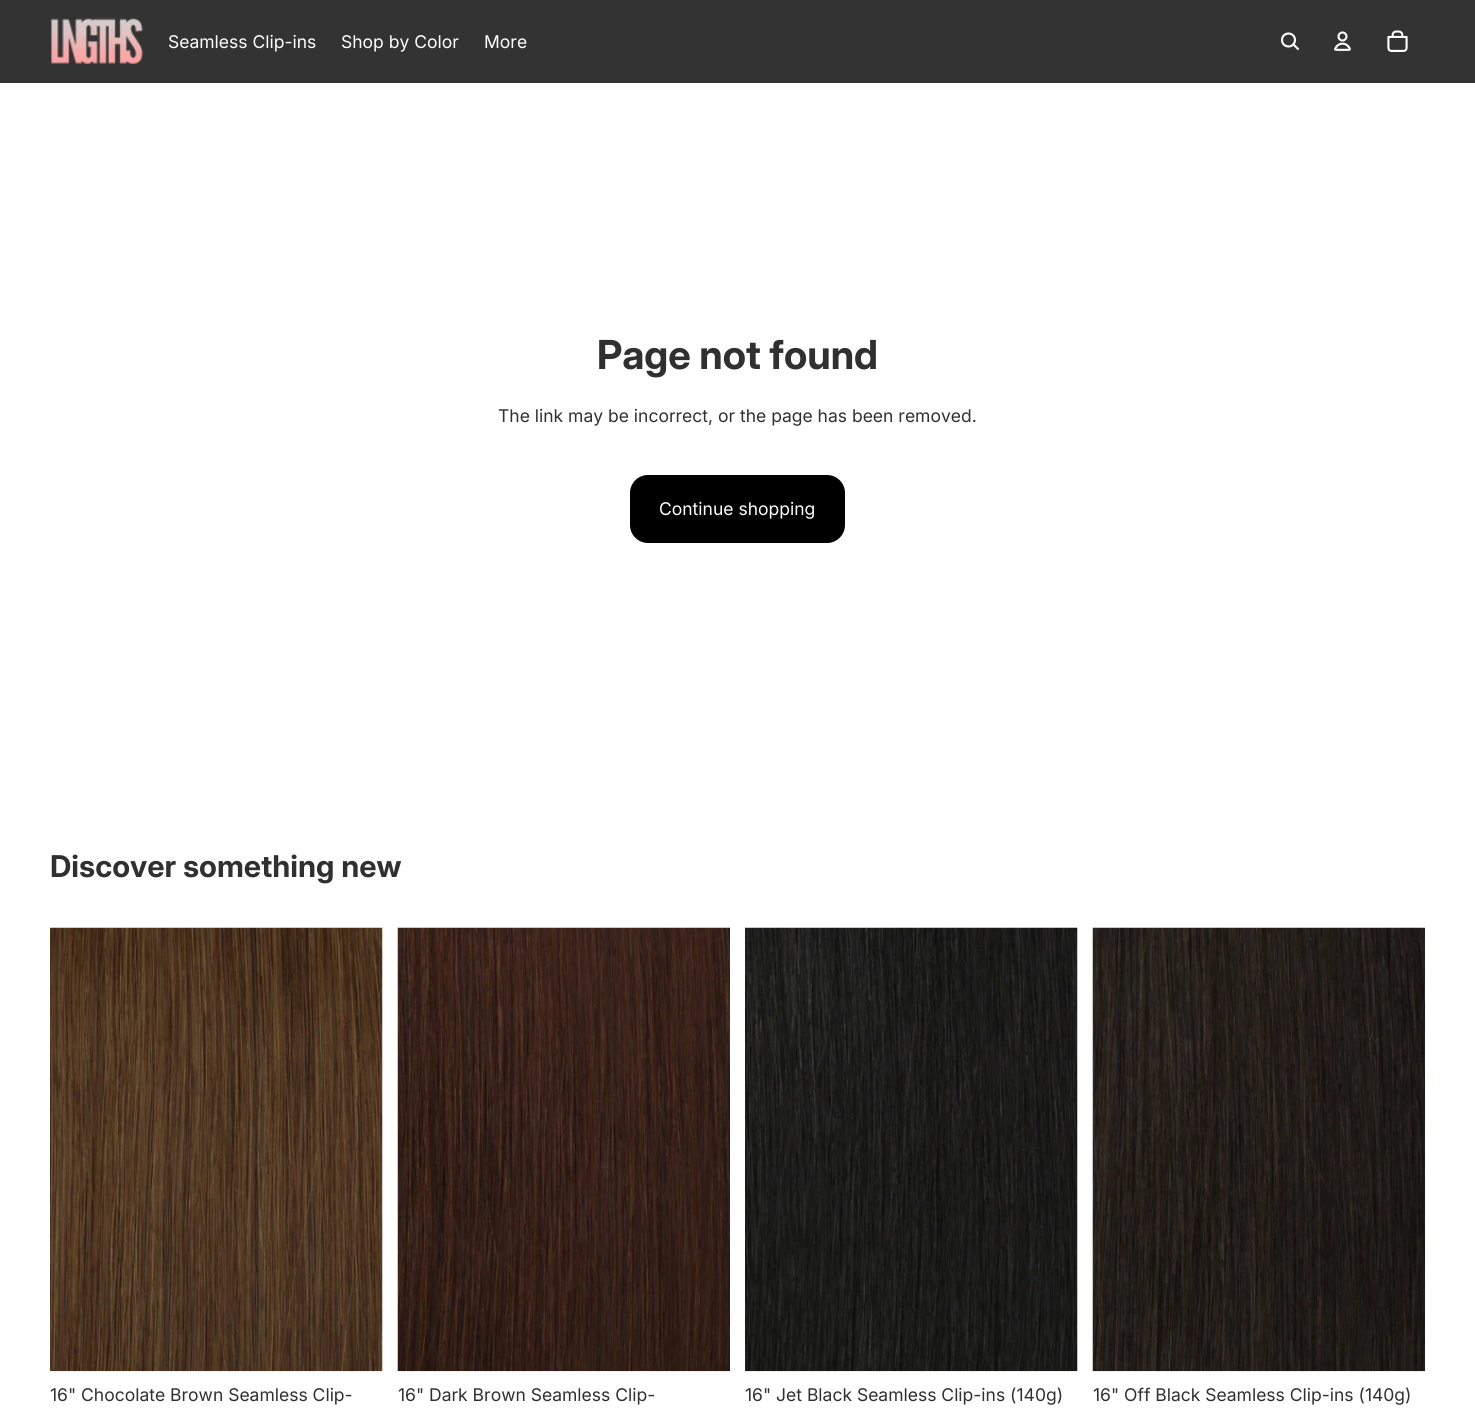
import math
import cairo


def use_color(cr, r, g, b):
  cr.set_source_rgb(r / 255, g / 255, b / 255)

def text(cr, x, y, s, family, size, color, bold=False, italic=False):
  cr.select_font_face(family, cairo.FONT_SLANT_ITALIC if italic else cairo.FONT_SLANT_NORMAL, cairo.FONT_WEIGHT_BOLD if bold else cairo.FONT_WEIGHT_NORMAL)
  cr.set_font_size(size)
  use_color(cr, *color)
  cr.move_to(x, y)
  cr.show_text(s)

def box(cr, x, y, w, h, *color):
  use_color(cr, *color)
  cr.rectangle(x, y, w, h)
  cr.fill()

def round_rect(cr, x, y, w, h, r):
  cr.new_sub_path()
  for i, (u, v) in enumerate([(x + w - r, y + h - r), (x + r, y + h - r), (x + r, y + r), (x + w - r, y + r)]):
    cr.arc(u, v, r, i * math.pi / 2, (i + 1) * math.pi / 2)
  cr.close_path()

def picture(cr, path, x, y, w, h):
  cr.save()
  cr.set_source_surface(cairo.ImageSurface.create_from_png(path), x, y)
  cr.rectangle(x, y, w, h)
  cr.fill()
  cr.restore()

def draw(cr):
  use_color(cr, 255, 255, 255)
  cr.paint()
  box(cr, 0, 0, 1475, 83, 51, 51, 51)
  picture(cr, "img_01.png", 51, 18, 92, 46)
  cr.arc(1288.5, 40, 6.5, 0, 2 * math.pi)
  use_color(cr, 255, 255, 255)
  cr.set_line_width(2.1)
  cr.stroke()
  cr.new_path()
  cr.move_to(1293.5, 44.5)
  cr.line_to(1298, 49)
  cr.set_line_cap(cairo.LINE_CAP_ROUND)
  cr.set_line_join(cairo.LINE_JOIN_ROUND)
  cr.stroke()
  picture(cr, "img_02.png", 1334, 31, 17, 20)
  picture(cr, "img_03.png", 1387, 30, 21, 22)
  use_color(cr, 0, 0, 0)
  round_rect(cr, 630, 475, 215, 68, 18)
  cr.fill()
  picture(cr, "img_04.png", 50, 927, 333, 445)
  picture(cr, "img_05.png", 397, 927, 333, 445)
  picture(cr, "img_06.png", 745, 927, 333, 445)
  picture(cr, "img_07.png", 1092, 927, 333, 445)
  text(cr, 168, 48, "Seamless Clip-ins", "Inter", 17.5, (255, 255, 255))
  text(cr, 341, 48, "Shop by Color", "Inter", 17.5, (255, 255, 255))
  text(cr, 484, 48, "More", "Inter", 17.5, (255, 255, 255))
  text(cr, 597, 369, "Page not found", "Inter", 40, (48, 48, 48), bold=True)
  text(cr, 498, 422, "The link may be incorrect, or the page has been removed.", "Inter", 17.5, (48, 48, 48))
  text(cr, 659, 515, "Continue shopping", "Inter", 17.5, (255, 255, 255))
  text(cr, 50, 877, "Discover something new", "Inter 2", 30, (48, 48, 48), bold=True)
  text(cr, 50, 1401, "16\" Chocolate Brown Seamless Clip-", "Inter", 17.5, (48, 48, 48))
  text(cr, 398, 1401, "16\" Dark Brown Seamless Clip-", "Inter", 17.5, (48, 48, 48))
  text(cr, 745, 1401, "16\" Jet Black Seamless Clip-ins (140g)", "Inter", 17.5, (48, 48, 48))
  text(cr, 1093, 1401, "16\" Off Black Seamless Clip-ins (140g)", "Inter", 17.5, (48, 48, 48))


surface = cairo.ImageSurface(cairo.FORMAT_RGB24, 1475, 1418)
cr = cairo.Context(surface)
options = cairo.FontOptions()
options.set_hint_metrics(cairo.HINT_METRICS_OFF)
options.set_hint_style(cairo.HINT_STYLE_NONE)
cr.set_font_options(options)
cr.set_miter_limit(4)
draw(cr)
surface.write_to_png("out.png")
